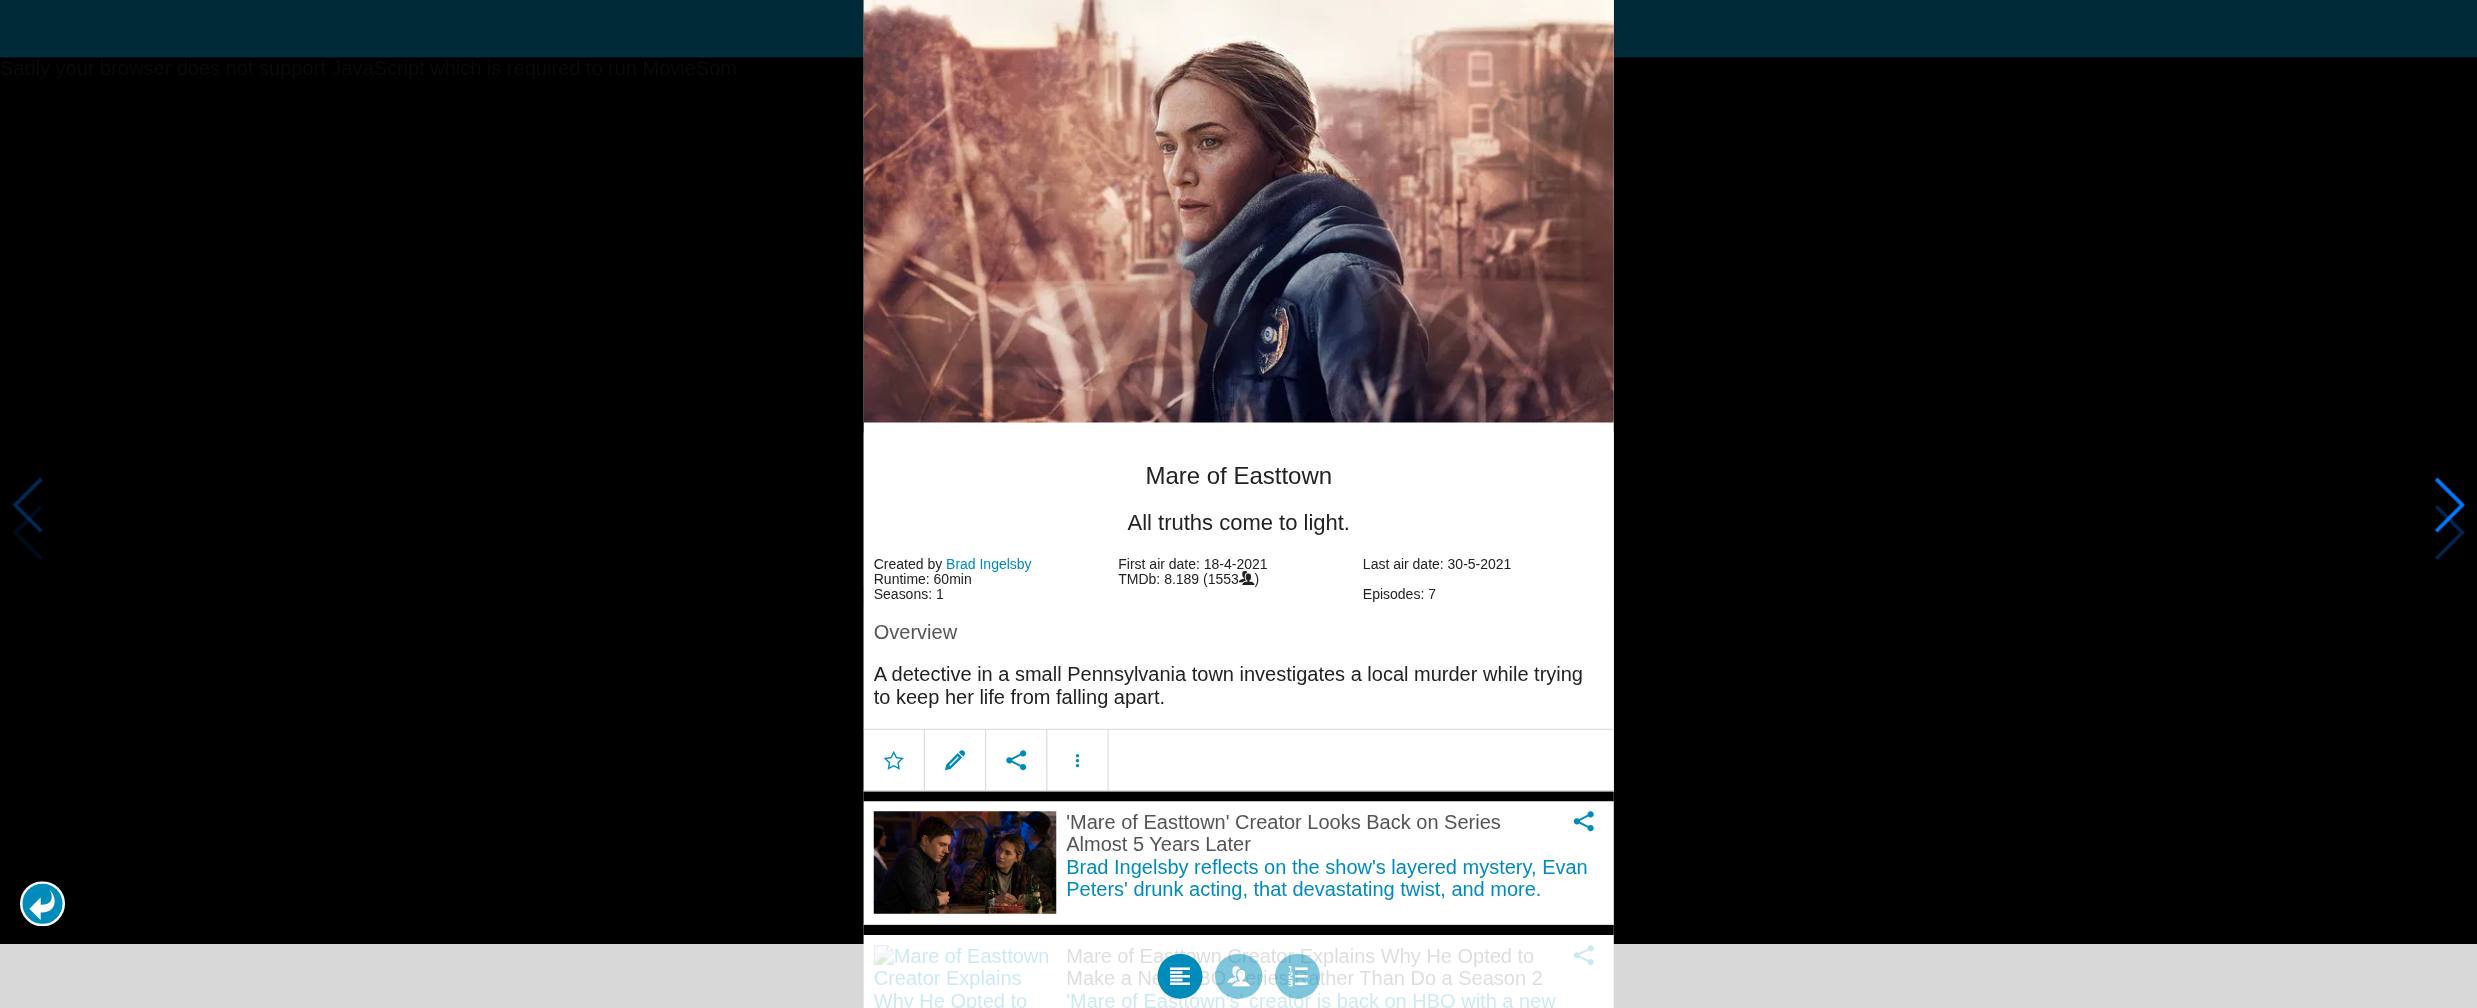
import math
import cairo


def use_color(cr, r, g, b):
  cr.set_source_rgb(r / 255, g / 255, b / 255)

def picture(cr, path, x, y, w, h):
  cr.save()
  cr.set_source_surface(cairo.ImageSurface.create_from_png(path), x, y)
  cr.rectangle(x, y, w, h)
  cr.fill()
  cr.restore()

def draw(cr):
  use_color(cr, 255, 255, 255)
  cr.paint()
  picture(cr, "img_01.png", 0, 0, 2477, 1008)


surface = cairo.ImageSurface(cairo.FORMAT_RGB24, 2477, 1008)
cr = cairo.Context(surface)
options = cairo.FontOptions()
options.set_hint_metrics(cairo.HINT_METRICS_OFF)
options.set_hint_style(cairo.HINT_STYLE_NONE)
cr.set_font_options(options)
cr.set_miter_limit(4)
draw(cr)
surface.write_to_png("out.png")
